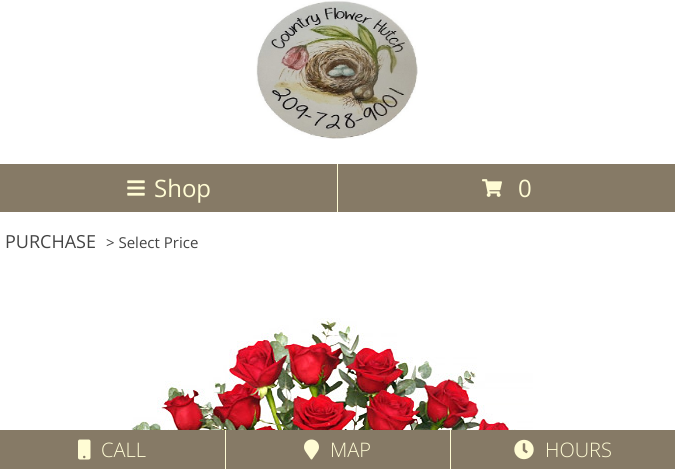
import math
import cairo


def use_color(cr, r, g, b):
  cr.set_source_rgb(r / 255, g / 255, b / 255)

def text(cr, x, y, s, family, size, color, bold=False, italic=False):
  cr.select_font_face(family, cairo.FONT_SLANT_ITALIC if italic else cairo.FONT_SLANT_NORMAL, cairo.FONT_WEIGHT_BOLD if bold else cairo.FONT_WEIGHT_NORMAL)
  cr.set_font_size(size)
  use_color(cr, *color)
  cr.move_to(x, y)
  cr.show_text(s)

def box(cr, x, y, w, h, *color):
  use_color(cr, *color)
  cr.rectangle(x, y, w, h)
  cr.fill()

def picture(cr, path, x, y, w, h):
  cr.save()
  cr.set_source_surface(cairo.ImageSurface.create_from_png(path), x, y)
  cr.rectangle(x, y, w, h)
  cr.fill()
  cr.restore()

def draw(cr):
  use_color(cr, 255, 255, 255)
  cr.paint()
  picture(cr, "img_01.png", 256, 0, 162, 139)
  box(cr, 337, 164, 1, 48, 255, 252, 212)
  box(cr, 0, 164, 337, 48, 134, 122, 102)
  picture(cr, "img_02.png", 127, 180, 18, 16)
  box(cr, 338, 164, 337, 48, 134, 122, 102)
  picture(cr, "img_03.png", 482, 179, 20, 18)
  picture(cr, "img_04.png", 130, 318, 403, 112)
  box(cr, 0, 430, 225, 39, 134, 122, 102)
  picture(cr, "img_05.png", 78, 439, 13, 21)
  box(cr, 226, 430, 224, 39, 134, 122, 102)
  box(cr, 225, 430, 1, 39, 255, 252, 212)
  picture(cr, "img_06.png", 304, 439, 15, 21)
  box(cr, 451, 430, 224, 39, 134, 122, 102)
  box(cr, 450, 430, 1, 39, 255, 252, 212)
  picture(cr, "img_07.png", 514, 439, 20, 21)
  text(cr, 154, 197, "Shop", "Open Sans", 24, (255, 252, 212))
  text(cr, 518, 197, "0", "Open Sans", 24, (255, 252, 212))
  text(cr, 5, 248, "PURCHASE", "Open Sans", 18, (68, 68, 68))
  text(cr, 106, 248, "> Select Price", "Open Sans", 15, (68, 68, 68))
  text(cr, 101, 457, "CALL", "Open Sans Light", 20, (255, 252, 212))
  text(cr, 330, 457, "MAP", "Open Sans Light", 20, (255, 252, 212))
  text(cr, 545, 457, "HOURS", "Open Sans Light", 20, (255, 252, 212))


surface = cairo.ImageSurface(cairo.FORMAT_RGB24, 675, 469)
cr = cairo.Context(surface)
options = cairo.FontOptions()
options.set_hint_metrics(cairo.HINT_METRICS_OFF)
options.set_hint_style(cairo.HINT_STYLE_NONE)
cr.set_font_options(options)
cr.set_miter_limit(4)
draw(cr)
surface.write_to_png("out.png")
